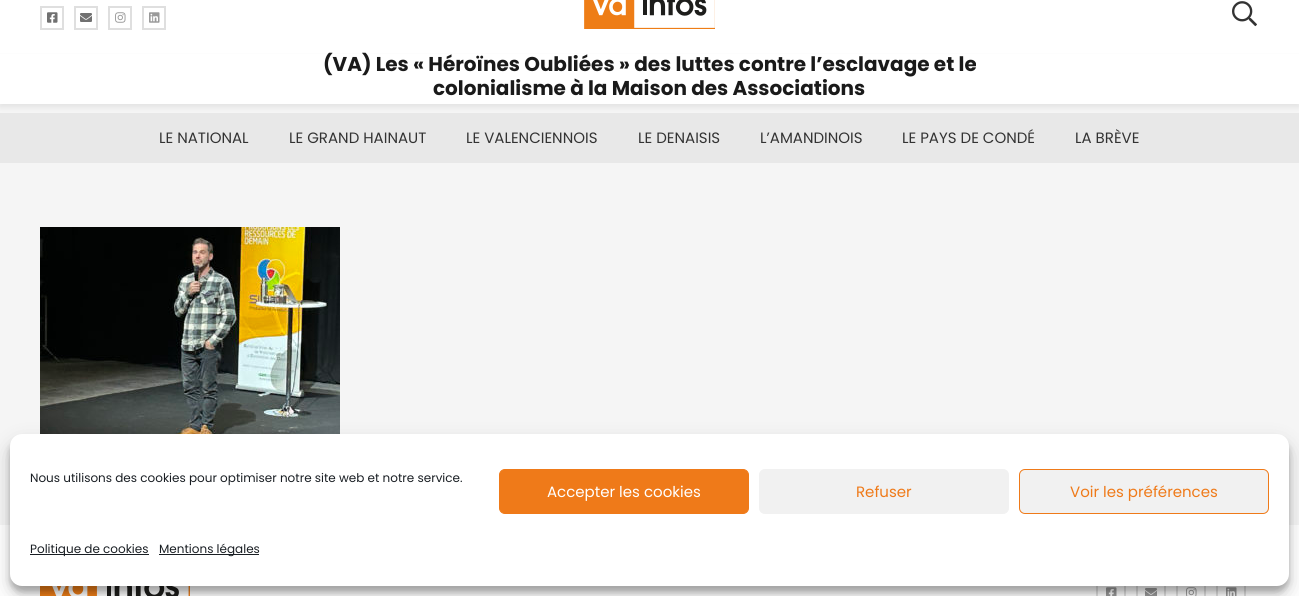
import math
import cairo


def use_color(cr, r, g, b):
  cr.set_source_rgb(r / 255, g / 255, b / 255)

def text(cr, x, y, s, family, size, color, bold=False, italic=False):
  cr.select_font_face(family, cairo.FONT_SLANT_ITALIC if italic else cairo.FONT_SLANT_NORMAL, cairo.FONT_WEIGHT_BOLD if bold else cairo.FONT_WEIGHT_NORMAL)
  cr.set_font_size(size)
  use_color(cr, *color)
  cr.move_to(x, y)
  cr.show_text(s)

def box(cr, x, y, w, h, *color):
  use_color(cr, *color)
  cr.rectangle(x, y, w, h)
  cr.fill()

def round_rect(cr, x, y, w, h, r):
  cr.new_sub_path()
  for i, (u, v) in enumerate([(x + w - r, y + h - r), (x + r, y + h - r), (x + r, y + r), (x + w - r, y + r)]):
    cr.arc(u, v, r, i * math.pi / 2, (i + 1) * math.pi / 2)
  cr.close_path()

def shadow(cr, x, y, w, h, r, blur, alpha):
  cr.push_group_with_content(cairo.CONTENT_ALPHA)
  cr.set_operator(cairo.OPERATOR_SOURCE)
  for i in range(15, -16, -2):
    e = blur * i / 6
    if min(w, h) + 2 * e > 0:
      cr.set_source_rgba(0, 0, 0, alpha * math.erfc((i - 1) / 8.5) / 2)
      round_rect(cr, x - e, y - e, w + 2 * e, h + 2 * e, max(0, min(r + e + blur * .6, min(w, h) / 2 + e)))
      cr.fill()
  cr.mask(cr.pop_group())

def picture(cr, path, x, y, w, h):
  cr.save()
  cr.set_source_surface(cairo.ImageSurface.create_from_png(path), x, y)
  cr.rectangle(x, y, w, h)
  cr.fill()
  cr.restore()

def draw(cr):
  use_color(cr, 245, 245, 245)
  cr.paint()
  box(cr, 0, 0, 1299, 54, 255, 255, 255)
  cr.rectangle(41, 7, 22, 22)
  use_color(cr, 223, 223, 223)
  cr.stroke()
  picture(cr, "img_01.png", 47, 12, 11, 11)
  cr.rectangle(75, 7, 22, 22)
  cr.stroke()
  picture(cr, "img_02.png", 80, 13, 12, 9)
  cr.rectangle(109, 7, 22, 22)
  cr.stroke()
  picture(cr, "img_03.png", 115, 12, 11, 11)
  cr.rectangle(143, 7, 22, 22)
  cr.stroke()
  picture(cr, "img_04.png", 149, 12, 11, 11)
  picture(cr, "img_05.png", 584, 0, 131, 29)
  picture(cr, "img_06.png", 1232, 1, 25, 26)
  box(cr, 0, 113, 1299, 50, 232, 232, 232)
  use_color(cr, 0, 0, 0)
  shadow(cr, 0, 57, 1299, 50, 0, 3, 0.08)
  box(cr, 0, 54, 1299, 50, 255, 255, 255)
  picture(cr, "img_07.png", 40, 227, 300, 207)
  box(cr, 0, 525, 1299, 71, 255, 255, 255)
  picture(cr, "img_08.png", 40, 586, 150, 10)
  cr.rectangle(1097, 579, 28, 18)
  use_color(cr, 223, 223, 223)
  cr.stroke()
  picture(cr, "img_09.png", 1106, 587, 11, 9)
  cr.rectangle(1137, 579, 28, 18)
  cr.stroke()
  picture(cr, "img_10.png", 1145, 588, 12, 8)
  cr.rectangle(1177, 579, 28, 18)
  cr.stroke()
  picture(cr, "img_11.png", 1186, 587, 11, 9)
  cr.rectangle(1217, 579, 28, 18)
  cr.stroke()
  picture(cr, "img_12.png", 1226, 587, 11, 9)
  use_color(cr, 0, 0, 0)
  shadow(cr, 10, 440, 1279, 152, 12, 3, 0.23)
  shadow(cr, 10, 444, 1279, 152, 12, 10, 0.19)
  use_color(cr, 255, 255, 255)
  round_rect(cr, 10, 434, 1279, 152, 12)
  cr.fill()
  use_color(cr, 239, 122, 25)
  round_rect(cr, 499.5, 469.5, 249, 44, 5.5)
  cr.fill_preserve()
  cr.set_line_width(1)
  cr.stroke()
  use_color(cr, 241, 241, 241)
  round_rect(cr, 759.5, 469.5, 249, 44, 5.5)
  cr.fill_preserve()
  cr.stroke()
  round_rect(cr, 1019.5, 469.5, 249, 44, 5.5)
  cr.fill_preserve()
  use_color(cr, 239, 122, 25)
  cr.stroke()
  box(cr, 30, 554, 119, 1, 25, 30, 35)
  box(cr, 159, 554, 100, 1, 25, 30, 35)
  text(cr, 323, 71, "(VA) Les « Héroïnes Oubliées » des luttes contre l’esclavage et le", "Poppins", 20, (26, 26, 26), bold=True)
  text(cr, 433, 95, "colonialisme à la Maison des Associations", "Poppins", 20, (26, 26, 26), bold=True)
  text(cr, 159, 143, "LE NATIONAL", "Poppins", 15, (51, 51, 51))
  text(cr, 289, 143, "LE GRAND HAINAUT", "Poppins", 15, (51, 51, 51))
  text(cr, 466, 143, "LE VALENCIENNOIS", "Poppins", 15, (51, 51, 51))
  text(cr, 638, 143, "LE DENAISIS", "Poppins", 15, (51, 51, 51))
  text(cr, 760, 143, "L’AMANDINOIS", "Poppins", 15, (51, 51, 51))
  text(cr, 902, 143, "LE PAYS DE CONDÉ", "Poppins", 15, (51, 51, 51))
  text(cr, 1075, 143, "LA BRÈVE", "Poppins", 15, (51, 51, 51))
  text(cr, 30, 482, "Nous utilisons des cookies pour optimiser notre site web et notre service.", "Poppins", 12, (25, 30, 35))
  text(cr, 547, 497, "Accepter les cookies", "Poppins", 15, (255, 255, 255))
  text(cr, 856, 497, "Refuser", "Poppins", 15, (239, 122, 25))
  text(cr, 1070, 497, "Voir les préférences", "Poppins", 15, (239, 122, 25))
  text(cr, 30, 553, "Politique de cookies", "Poppins", 12, (25, 30, 35))
  text(cr, 159, 553, "Mentions légales", "Poppins", 12, (25, 30, 35))


surface = cairo.ImageSurface(cairo.FORMAT_RGB24, 1299, 596)
cr = cairo.Context(surface)
options = cairo.FontOptions()
options.set_hint_metrics(cairo.HINT_METRICS_OFF)
options.set_hint_style(cairo.HINT_STYLE_NONE)
cr.set_font_options(options)
cr.set_miter_limit(4)
draw(cr)
surface.write_to_png("out.png")
